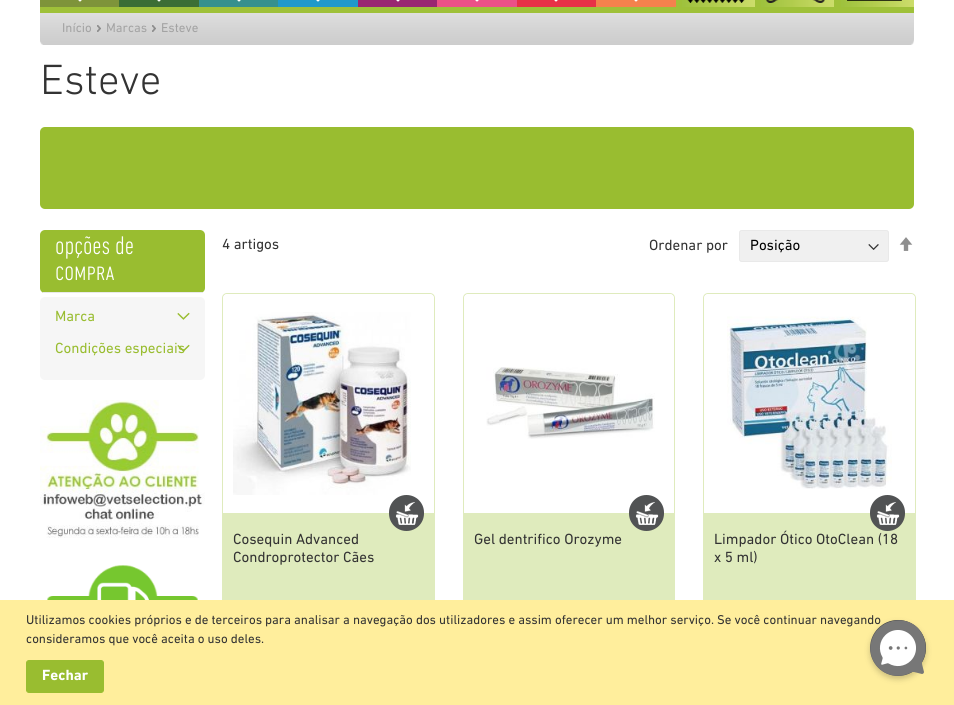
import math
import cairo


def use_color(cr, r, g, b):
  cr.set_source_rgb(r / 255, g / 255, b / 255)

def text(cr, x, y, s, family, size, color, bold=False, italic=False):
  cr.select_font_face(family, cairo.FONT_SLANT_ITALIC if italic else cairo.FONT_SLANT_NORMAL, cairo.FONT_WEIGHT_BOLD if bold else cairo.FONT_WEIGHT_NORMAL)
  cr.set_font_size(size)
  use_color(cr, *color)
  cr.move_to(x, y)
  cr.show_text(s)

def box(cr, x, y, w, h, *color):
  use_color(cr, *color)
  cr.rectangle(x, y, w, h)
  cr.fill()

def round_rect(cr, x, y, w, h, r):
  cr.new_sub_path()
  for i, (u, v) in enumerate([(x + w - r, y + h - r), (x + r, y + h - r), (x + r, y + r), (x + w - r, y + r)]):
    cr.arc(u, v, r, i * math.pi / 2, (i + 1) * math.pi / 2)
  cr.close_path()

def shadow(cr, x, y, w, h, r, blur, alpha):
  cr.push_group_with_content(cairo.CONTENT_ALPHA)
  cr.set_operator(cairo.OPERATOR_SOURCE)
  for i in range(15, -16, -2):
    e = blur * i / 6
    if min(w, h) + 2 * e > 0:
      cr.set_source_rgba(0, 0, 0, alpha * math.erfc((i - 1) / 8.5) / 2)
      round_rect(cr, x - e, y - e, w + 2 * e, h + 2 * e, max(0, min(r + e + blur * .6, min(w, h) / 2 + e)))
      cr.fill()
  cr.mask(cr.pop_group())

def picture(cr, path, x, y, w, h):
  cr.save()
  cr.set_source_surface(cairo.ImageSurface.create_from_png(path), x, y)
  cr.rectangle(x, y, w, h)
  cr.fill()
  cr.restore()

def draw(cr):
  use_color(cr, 255, 255, 255)
  cr.paint()
  box(cr, 40, 0, 874, 13, 159, 193, 57)
  box(cr, 40, 0, 79, 7, 126, 148, 58)
  picture(cr, "img_01.png", 78, 0, 4, 2)
  box(cr, 119, 0, 80, 7, 59, 110, 53)
  picture(cr, "img_02.png", 157, 0, 4, 2)
  box(cr, 199, 0, 79, 7, 54, 144, 142)
  picture(cr, "img_03.png", 237, 0, 4, 2)
  box(cr, 278, 0, 80, 7, 32, 153, 202)
  picture(cr, "img_04.png", 316, 0, 4, 2)
  box(cr, 358, 0, 79, 7, 153, 38, 113)
  picture(cr, "img_05.png", 396, 0, 4, 2)
  box(cr, 437, 0, 80, 7, 235, 81, 135)
  picture(cr, "img_06.png", 475, 0, 4, 2)
  box(cr, 517, 0, 79, 7, 232, 48, 71)
  picture(cr, "img_07.png", 554, 0, 4, 2)
  box(cr, 596, 0, 80, 7, 244, 130, 77)
  picture(cr, "img_08.png", 634, 0, 4, 2)
  picture(cr, "img_09.png", 682, 0, 73, 7)
  picture(cr, "img_10.png", 687, 0, 58, 3)
  picture(cr, "img_11.png", 761, 0, 73, 7)
  picture(cr, "img_12.png", 765, 0, 60, 3)
  picture(cr, "img_09.png", 841, 0, 73, 7)
  picture(cr, "img_13.png", 847, 0, 55, 1)
  picture(cr, "img_14.png", 40, 13, 874, 32)
  picture(cr, "img_15.png", 97, 25, 4, 7)
  picture(cr, "img_15.png", 152, 25, 4, 7)
  use_color(cr, 153, 189, 48)
  round_rect(cr, 40, 127, 874, 82, 5)
  cr.fill()
  round_rect(cr, 40, 230, 165, 63, 5)
  cr.fill()
  box(cr, 43, 292, 160, 1, 233, 233, 233)
  use_color(cr, 246, 246, 246)
  round_rect(cr, 40, 297, 165, 83, 5)
  cr.fill()
  picture(cr, "img_16.png", 177, 312, 13, 8)
  use_color(cr, 240, 240, 240)
  round_rect(cr, 739, 230, 150, 32, 3)
  cr.fill()
  picture(cr, "img_18.png", 868, 244, 11, 6)
  round_rect(cr, 739.5, 230.5, 149, 31, 2.5)
  use_color(cr, 233, 233, 233)
  cr.set_line_width(1)
  cr.stroke()
  picture(cr, "img_19.png", 899, 237, 14, 14)
  round_rect(cr, 222.5, 293.5, 212, 334, 4.5)
  use_color(cr, 223, 235, 189)
  cr.stroke()
  use_color(cr, 255, 255, 255)
  cr.new_path()
  cr.move_to(228, 294)
  cr.line_to(429, 294)
  cr.curve_to(432, 294, 434, 296, 434, 299)
  cr.line_to(434, 505)
  cr.line_to(223, 505)
  cr.line_to(223, 299)
  cr.curve_to(223, 296, 225, 294, 228, 294)
  cr.close_path()
  cr.fill()
  picture(cr, "img_20.png", 233, 312, 178, 183)
  box(cr, 223, 513, 211, 87, 223, 235, 189)
  use_color(cr, 81, 83, 84)
  round_rect(cr, 389, 495, 35, 36, 17.5)
  cr.fill()
  picture(cr, "img_21.png", 395, 502, 24, 23)
  round_rect(cr, 463.5, 293.5, 211, 334, 4.5)
  use_color(cr, 223, 235, 189)
  cr.stroke()
  use_color(cr, 255, 255, 255)
  cr.new_path()
  cr.move_to(469, 294)
  cr.line_to(669, 294)
  cr.curve_to(672, 294, 674, 296, 674, 299)
  cr.line_to(674, 505)
  cr.line_to(464, 505)
  cr.line_to(464, 299)
  cr.curve_to(464, 296, 466, 294, 469, 294)
  cr.close_path()
  cr.fill()
  picture(cr, "img_22.png", 486, 367, 169, 72)
  box(cr, 464, 513, 210, 87, 223, 235, 189)
  use_color(cr, 81, 83, 84)
  round_rect(cr, 629, 495, 35, 36, 17.5)
  cr.fill()
  picture(cr, "img_21.png", 635, 502, 24, 23)
  round_rect(cr, 703.5, 293.5, 212, 334, 4.5)
  use_color(cr, 223, 235, 189)
  cr.stroke()
  use_color(cr, 255, 255, 255)
  cr.new_path()
  cr.move_to(709, 294)
  cr.line_to(910, 294)
  cr.curve_to(913, 294, 915, 296, 915, 299)
  cr.line_to(915, 505)
  cr.line_to(704, 505)
  cr.line_to(704, 299)
  cr.curve_to(704, 296, 706, 294, 709, 294)
  cr.close_path()
  cr.fill()
  picture(cr, "img_23.png", 727, 316, 165, 173)
  box(cr, 704, 513, 211, 87, 223, 235, 189)
  picture(cr, "img_24.png", 40, 400, 165, 138)
  picture(cr, "img_25.png", 45, 565, 153, 35)
  box(cr, 0, 600, 954, 105, 255, 238, 156)
  use_color(cr, 153, 189, 48)
  round_rect(cr, 26.5, 660.5, 77, 32, 2.5)
  cr.fill_preserve()
  cr.stroke()
  use_color(cr, 0, 0, 0)
  shadow(cr, 870, 623, 56, 56, 28, 3, 0.2)
  text(cr, 62, 32, "Início", "DIN Next", 13, (163, 163, 163))
  text(cr, 106, 32, "Marcas", "DIN Next", 13, (163, 163, 163))
  text(cr, 161, 32, "Esteve", "DIN Next", 13, (163, 163, 163))
  text(cr, 40, 94, "Esteve", "DIN Next Light", 43, (51, 51, 51))
  text(cr, 55, 254, "opções de", "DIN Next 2 Light", 26, (255, 255, 255))
  text(cr, 55, 280, "compra", "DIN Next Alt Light", 26, (255, 255, 255))
  text(cr, 55, 321, "Marca", "DIN Next", 15, (153, 189, 48))
  text(cr, 55, 353, "Condições especiais", "DIN Next", 15, (153, 189, 48))
  picture(cr, "img_17.png", 177, 344, 13, 8)
  text(cr, 222, 249, "4 artigos", "DIN Next", 15, (51, 51, 51))
  text(cr, 649, 250, "Ordenar por", "DIN Next", 15, (51, 51, 51))
  text(cr, 750, 250, "Posição", "DIN Next", 15, (0, 0, 0))
  text(cr, 233, 544, "Cosequin Advanced", "DIN Next", 15, (51, 51, 51))
  text(cr, 233, 562, "Condroprotector Cães", "DIN Next", 15, (51, 51, 51))
  text(cr, 474, 544, "Gel dentrifico Orozyme", "DIN Next", 15, (51, 51, 51))
  text(cr, 714, 544, "Limpador Ótico OtoClean (18", "DIN Next", 15, (51, 51, 51))
  use_color(cr, 81, 83, 84)
  round_rect(cr, 870, 495, 35, 36, 17.5)
  cr.fill()
  picture(cr, "img_21.png", 876, 502, 24, 23)
  text(cr, 714, 562, "x 5 ml)", "DIN Next", 15, (51, 51, 51))
  text(cr, 26, 624, "Utilizamos cookies próprios e de terceiros para analisar a navegação dos utilizadores e assim oferecer um melhor serviço. Se você continuar navegando", "DIN Next", 13, (51, 51, 51))
  text(cr, 26, 643, "consideramos que você aceita o uso deles.", "DIN Next", 13, (51, 51, 51))
  text(cr, 42, 680, "Fechar", "DIN Next", 15, (255, 255, 255), bold=True)
  gradient = cairo.LinearGradient(870, 676, 926, 620)
  gradient.add_color_stop_rgba(0, 0.467, 0.467, 0.467, 1)
  gradient.add_color_stop_rgba(1, 0.133, 0.133, 0.133, 1)
  cr.set_source(gradient)
  cr.new_path()
  cr.arc(898, 648, 28, 0, 2 * math.pi)
  cr.fill()
  use_color(cr, 119, 119, 119)
  cr.new_path()
  cr.move_to(918, 628)
  cr.curve_to(907, 617, 889, 618, 878, 629)
  cr.curve_to(868, 640, 868, 657, 878, 667)
  cr.curve_to(887, 677, 901, 678, 912, 672)
  cr.line_to(914, 672)
  cr.line_to(922, 674)
  cr.curve_to(923, 674, 924, 673, 924, 672)
  cr.line_to(922, 664)
  cr.line_to(922, 662)
  cr.curve_to(928, 652, 927, 638, 918, 628)
  cr.close_path()
  cr.fill()
  picture(cr, "img_26.png", 879, 630, 37, 37)
  picture(cr, "img_27.png", 888, 646, 20, 4)


surface = cairo.ImageSurface(cairo.FORMAT_RGB24, 954, 705)
cr = cairo.Context(surface)
options = cairo.FontOptions()
options.set_hint_metrics(cairo.HINT_METRICS_OFF)
options.set_hint_style(cairo.HINT_STYLE_NONE)
cr.set_font_options(options)
cr.set_miter_limit(4)
draw(cr)
surface.write_to_png("out.png")
